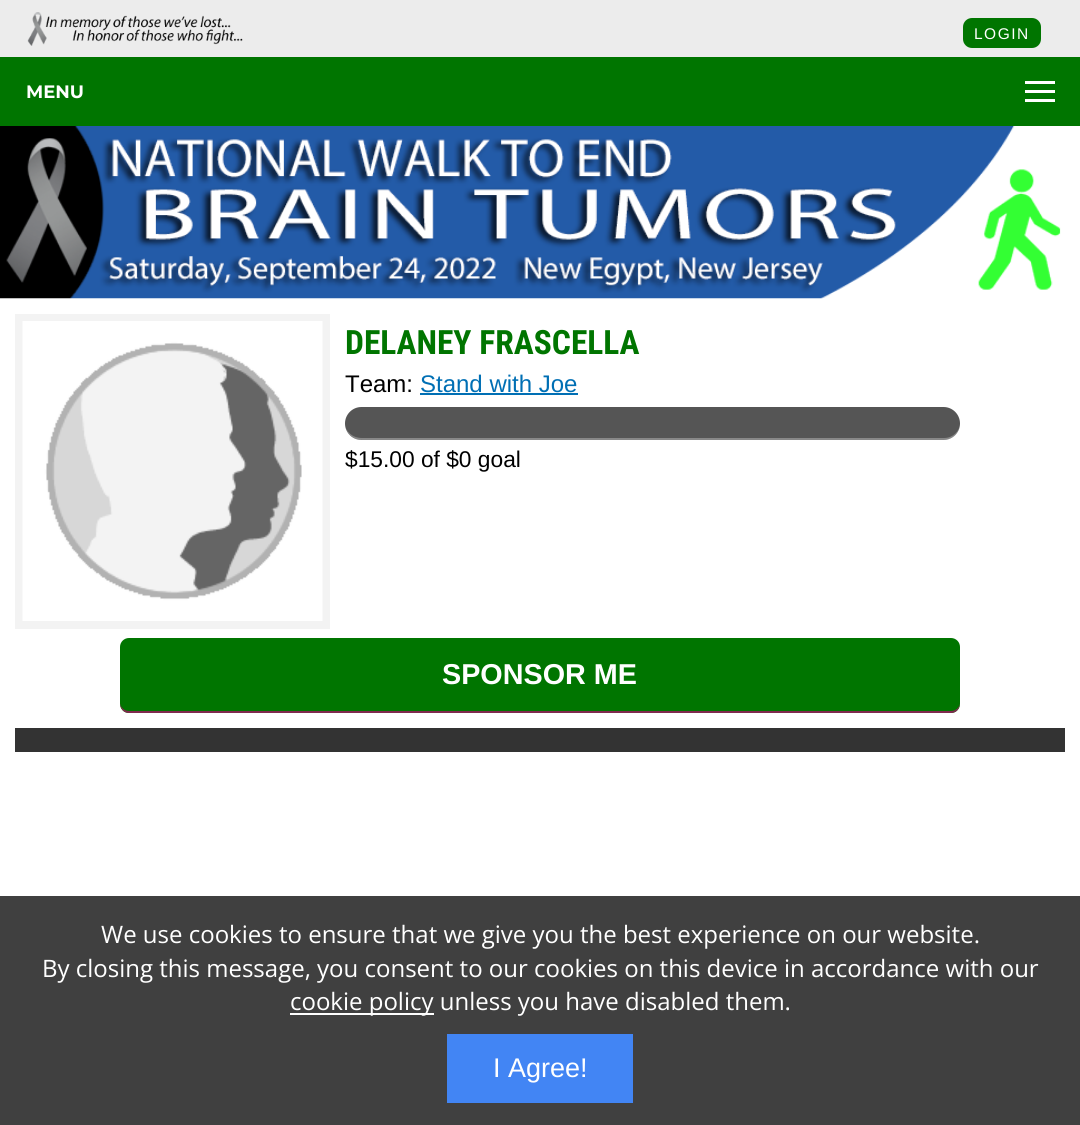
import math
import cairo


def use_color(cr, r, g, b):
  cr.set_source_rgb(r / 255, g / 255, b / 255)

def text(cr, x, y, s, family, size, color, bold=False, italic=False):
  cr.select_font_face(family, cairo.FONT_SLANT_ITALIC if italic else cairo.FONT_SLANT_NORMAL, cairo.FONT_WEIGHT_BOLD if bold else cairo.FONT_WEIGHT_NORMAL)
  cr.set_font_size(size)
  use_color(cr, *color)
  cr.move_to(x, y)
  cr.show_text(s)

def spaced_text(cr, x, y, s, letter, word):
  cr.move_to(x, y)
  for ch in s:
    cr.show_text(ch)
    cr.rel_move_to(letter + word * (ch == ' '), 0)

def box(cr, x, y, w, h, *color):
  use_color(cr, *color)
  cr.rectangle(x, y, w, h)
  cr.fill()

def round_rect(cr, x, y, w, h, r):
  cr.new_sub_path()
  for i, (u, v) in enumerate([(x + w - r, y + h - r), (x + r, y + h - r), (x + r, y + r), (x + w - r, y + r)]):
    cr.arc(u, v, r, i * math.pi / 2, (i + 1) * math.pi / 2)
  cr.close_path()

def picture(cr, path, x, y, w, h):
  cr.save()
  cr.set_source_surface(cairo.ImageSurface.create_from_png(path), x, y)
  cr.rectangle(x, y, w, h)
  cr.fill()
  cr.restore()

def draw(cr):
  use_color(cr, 236, 236, 236)
  cr.paint()
  picture(cr, "img_01.png", 27, 12, 216, 34)
  use_color(cr, 0, 117, 0)
  round_rect(cr, 963, 18, 78, 30, 9)
  cr.fill()
  box(cr, 0, 57, 1080, 69, 0, 117, 0)
  box(cr, 1025, 81, 30, 3, 255, 255, 255)
  box(cr, 1025, 90, 30, 3, 255, 255, 255)
  box(cr, 1025, 99, 30, 3, 255, 255, 255)
  box(cr, 0, 126, 1080, 770, 255, 255, 255)
  picture(cr, "img_02.png", 0, 126, 1061, 173)
  box(cr, 15, 314, 315, 315, 243, 243, 243)
  picture(cr, "img_03.png", 22, 321, 301, 300)
  box(cr, 420, 393, 158, 2, 0, 111, 180)
  use_color(cr, 85, 85, 85)
  round_rect(cr, 345, 407, 615, 33, 16.5)
  cr.fill()
  cr.set_source_rgba(1, 1, 1, 0.3)
  cr.new_path()
  cr.move_to(345, 423)
  cr.curve_to(345, 427, 347, 432, 350, 435)
  cr.curve_to(353, 438, 357, 440, 362, 440)
  cr.line_to(944, 440)
  cr.curve_to(953, 440, 960, 432, 960, 423)
  cr.curve_to(960, 431, 953, 438, 944, 438)
  cr.line_to(362, 438)
  cr.curve_to(352, 438, 345, 431, 345, 423)
  cr.close_path()
  cr.fill()
  use_color(cr, 0, 117, 0)
  round_rect(cr, 120, 638, 840, 75, 9)
  cr.fill()
  use_color(cr, 128, 42, 78)
  cr.new_path()
  cr.move_to(120, 702)
  cr.curve_to(120, 708, 123, 713, 129, 713)
  cr.line_to(951, 713)
  cr.curve_to(957, 713, 960, 708, 960, 702)
  cr.curve_to(960, 707, 956, 711, 951, 711)
  cr.line_to(129, 711)
  cr.curve_to(124, 711, 120, 707, 120, 702)
  cr.close_path()
  cr.fill()
  box(cr, 15, 728, 1050, 24, 51, 51, 51)
  box(cr, 0, 896, 1080, 229, 64, 64, 64)
  box(cr, 290, 1013, 144, 2, 255, 255, 255)
  box(cr, 447, 1034, 186, 69, 66, 133, 244)
  cr.select_font_face("Liberation Sans")
  cr.set_font_size(15.5)
  use_color(cr, 255, 255, 255)
  spaced_text(cr, 974, 39, "LOGIN", 1.5, 0)
  text(cr, 26, 98, "MENU", "Montserrat", 18, (255, 255, 255), bold=True)
  text(cr, 345, 354, "DELANEY FRASCELLA", "Roboto Condensed", 33.5, (0, 117, 0), bold=True)
  text(cr, 345, 392, "Team:", "Liberation Sans", 24, (0, 0, 0))
  text(cr, 420, 392, "Stand with Joe", "Liberation Sans", 24, (0, 111, 180))
  text(cr, 345, 467, "$15.00 of $0 goal", "Liberation Sans", 22.75, (0, 0, 0))
  text(cr, 442, 684, "SPONSOR ME", "Liberation Sans", 28.75, (255, 255, 255), bold=True)
  text(cr, 101, 943, "We use cookies to ensure that we give you the best experience on our website.", "Open Sans", 24, (255, 255, 255))
  text(cr, 42, 977, "By closing this message, you consent to our cookies on this device in accordance with our", "Open Sans", 24, (255, 255, 255))
  text(cr, 290, 1010, "cookie policy unless you have disabled them.", "Open Sans", 24, (255, 255, 255))
  text(cr, 493, 1077, "I Agree!", "Liberation Sans", 27, (255, 255, 255))


surface = cairo.ImageSurface(cairo.FORMAT_RGB24, 1080, 1125)
cr = cairo.Context(surface)
options = cairo.FontOptions()
options.set_hint_metrics(cairo.HINT_METRICS_OFF)
options.set_hint_style(cairo.HINT_STYLE_NONE)
cr.set_font_options(options)
cr.set_miter_limit(4)
draw(cr)
surface.write_to_png("out.png")
